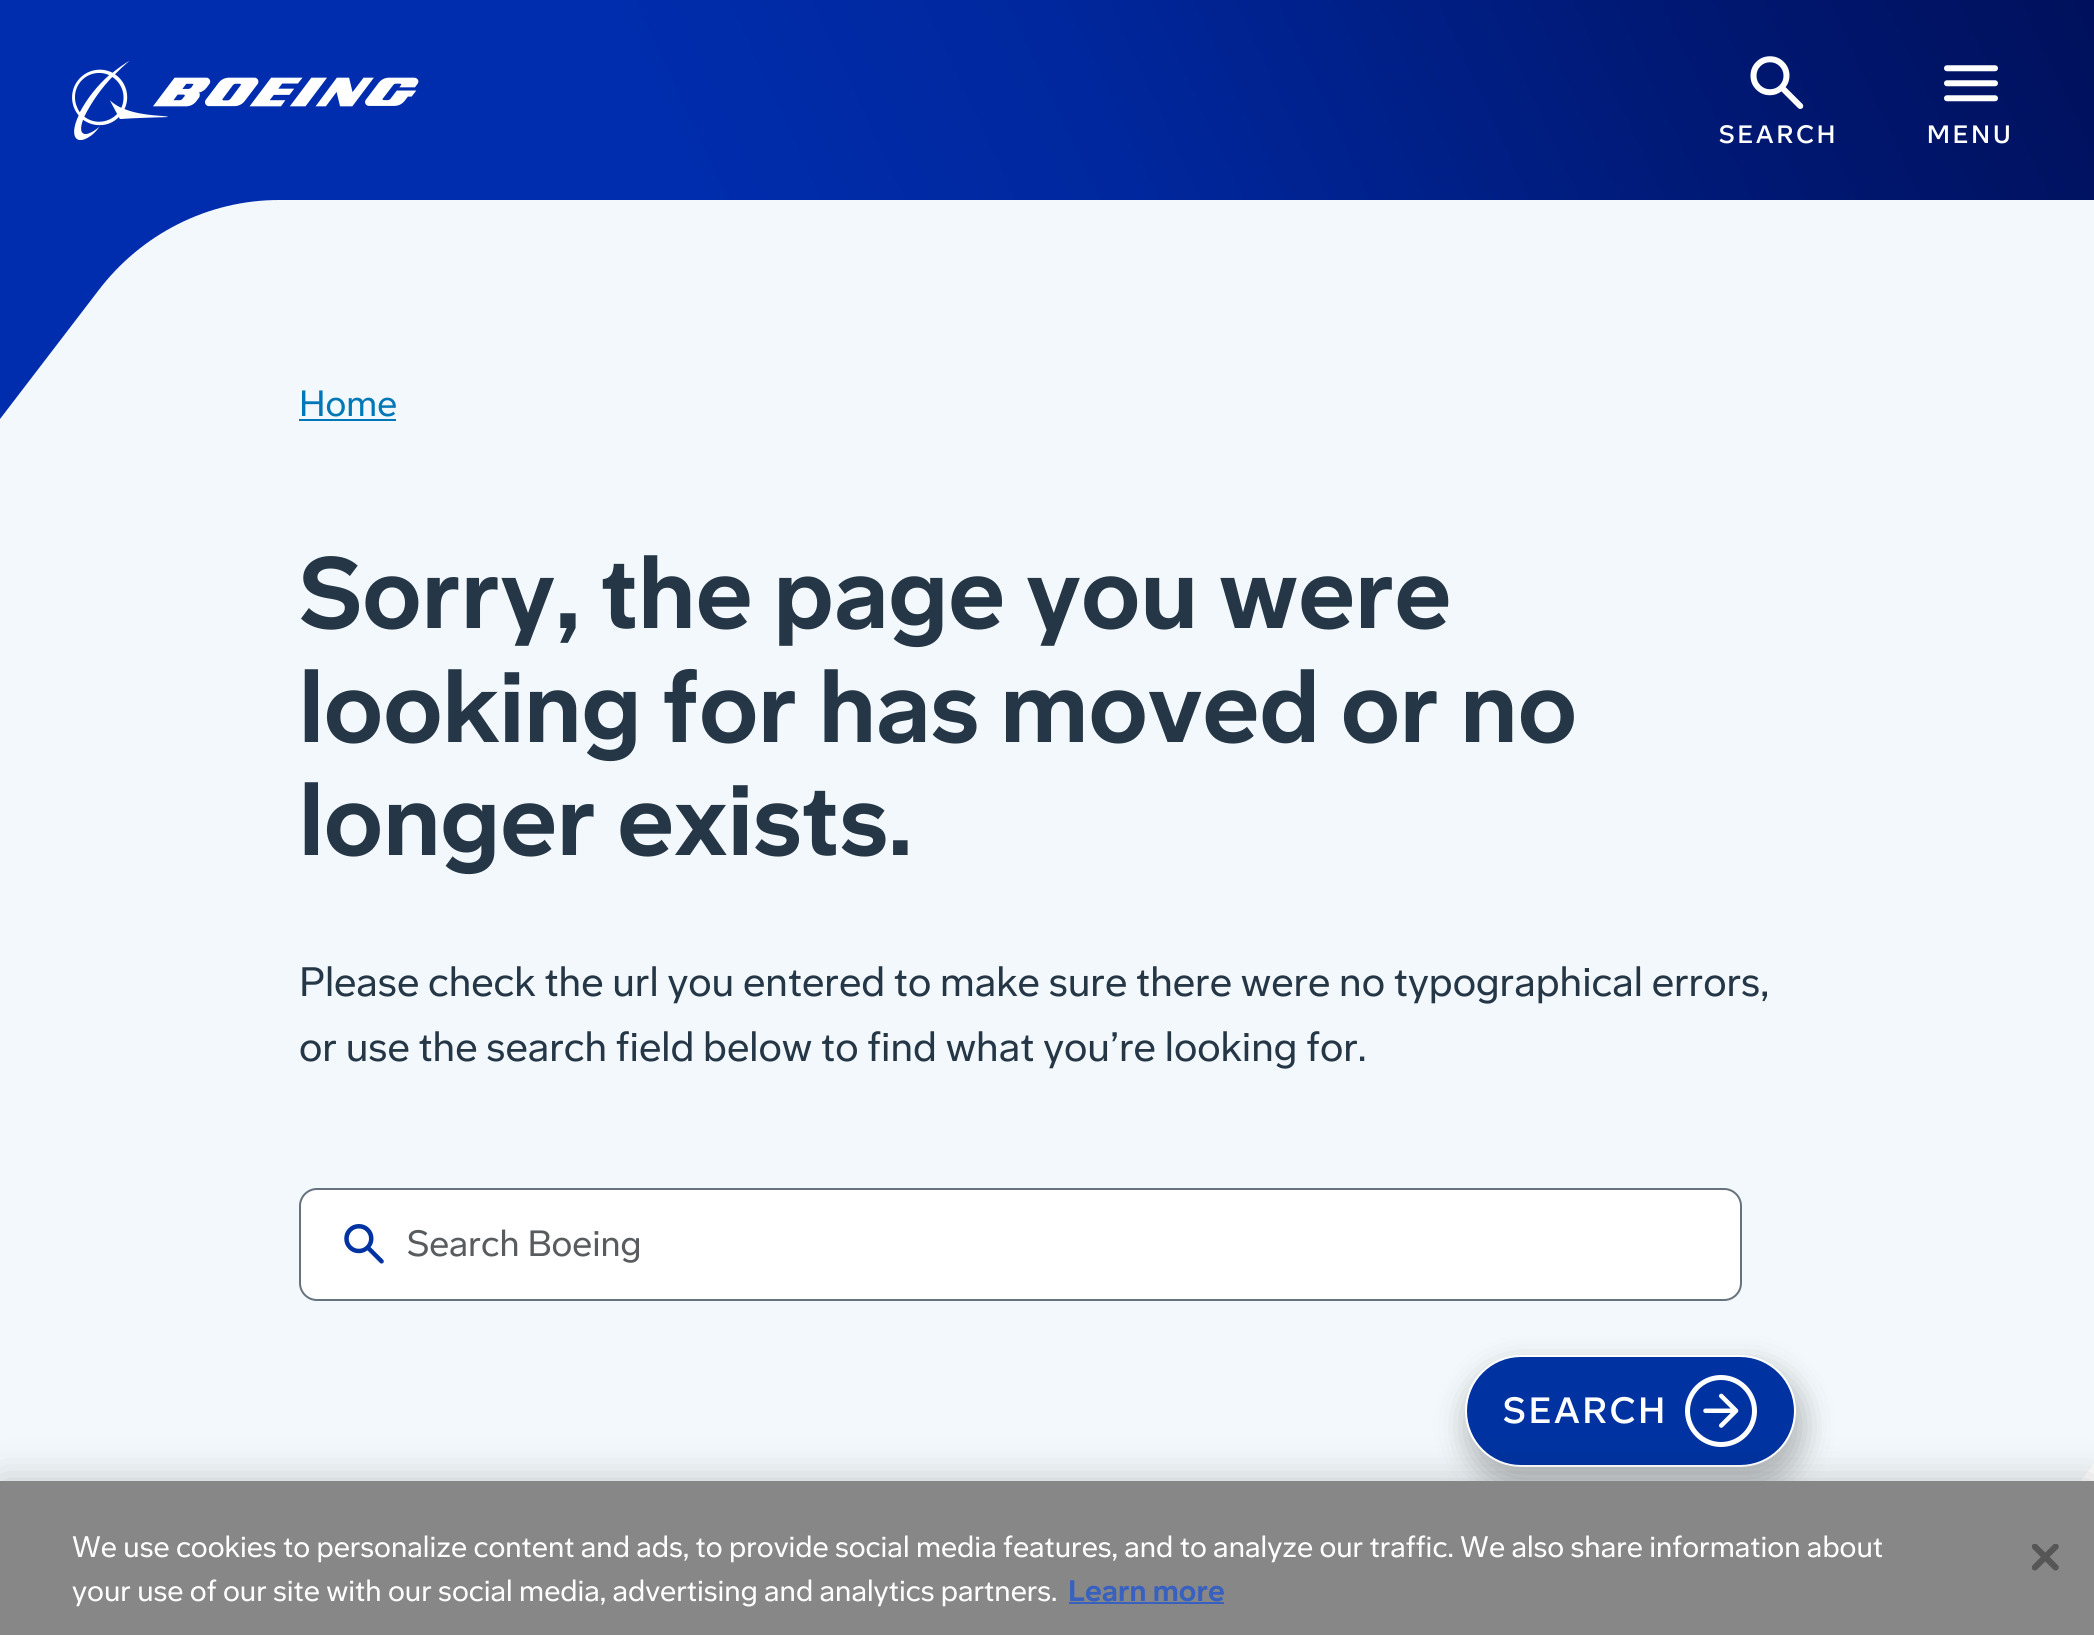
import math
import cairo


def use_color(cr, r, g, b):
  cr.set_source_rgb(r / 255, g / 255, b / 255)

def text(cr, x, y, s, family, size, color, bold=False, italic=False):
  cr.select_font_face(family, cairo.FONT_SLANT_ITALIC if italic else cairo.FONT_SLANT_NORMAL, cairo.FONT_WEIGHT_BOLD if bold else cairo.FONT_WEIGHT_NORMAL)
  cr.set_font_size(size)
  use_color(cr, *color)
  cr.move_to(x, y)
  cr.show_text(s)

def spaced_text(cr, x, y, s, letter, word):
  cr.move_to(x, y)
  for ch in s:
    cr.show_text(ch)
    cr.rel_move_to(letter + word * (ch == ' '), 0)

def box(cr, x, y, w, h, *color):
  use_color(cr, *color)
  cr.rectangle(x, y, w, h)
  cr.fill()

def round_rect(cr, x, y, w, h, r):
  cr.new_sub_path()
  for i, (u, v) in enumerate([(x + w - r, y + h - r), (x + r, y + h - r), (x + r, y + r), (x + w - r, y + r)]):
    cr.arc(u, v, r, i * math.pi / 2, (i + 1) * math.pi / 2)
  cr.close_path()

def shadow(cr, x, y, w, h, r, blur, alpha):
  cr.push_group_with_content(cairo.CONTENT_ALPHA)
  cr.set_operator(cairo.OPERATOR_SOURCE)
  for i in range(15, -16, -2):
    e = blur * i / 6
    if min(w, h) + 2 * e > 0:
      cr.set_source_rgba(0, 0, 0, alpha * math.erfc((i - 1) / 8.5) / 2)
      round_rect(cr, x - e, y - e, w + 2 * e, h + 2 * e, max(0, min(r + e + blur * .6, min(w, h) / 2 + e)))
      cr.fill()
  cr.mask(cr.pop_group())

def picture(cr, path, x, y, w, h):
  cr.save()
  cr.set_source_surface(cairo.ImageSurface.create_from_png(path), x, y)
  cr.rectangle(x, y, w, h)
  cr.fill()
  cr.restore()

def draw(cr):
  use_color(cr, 242, 248, 251)
  cr.paint()
  gradient = cairo.LinearGradient(1947, -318, 148, 518)
  gradient.add_color_stop_rgba(0, 0, 0.063, 0.361, 1)
  gradient.add_color_stop_rgba(0.21, 0, 0.098, 0.459, 1)
  gradient.add_color_stop_rgba(0.48, 0, 0.153, 0.616, 1)
  gradient.add_color_stop_rgba(0.68, 0, 0.176, 0.678, 1)
  cr.set_source(gradient)
  cr.rectangle(0, 0, 2094, 200)
  cr.fill()
  picture(cr, "img_01.png", 72, 61, 347, 79)
  picture(cr, "img_02.png", 1750, 56, 54, 53)
  picture(cr, "img_03.png", 1944, 65, 54, 37)
  cr.save()
  cr.rectangle(0, 200, 279, 221)
  cr.clip()
  use_color(cr, 0, 45, 173)
  cr.new_path()
  cr.move_to(98, 291)
  cr.curve_to(141, 234, 208, 200, 279, 200)
  cr.line_to(279, 199)
  cr.line_to(0, 199)
  cr.line_to(0, 419)
  cr.close_path()
  cr.fill()
  cr.restore()
  box(cr, 299, 419, 97, 2, 0, 120, 184)
  use_color(cr, 255, 255, 255)
  round_rect(cr, 300, 1189, 1441, 111, 17)
  cr.fill_preserve()
  use_color(cr, 102, 115, 126)
  cr.stroke()
  picture(cr, "img_04.png", 344, 1224, 40, 40)
  use_color(cr, 0, 0, 0)
  shadow(cr, 1465, 1366, 340, 121, 60.5, 14.5, 0.25)
  use_color(cr, 0, 51, 161)
  round_rect(cr, 1466, 1356, 329, 110, 55)
  cr.fill_preserve()
  use_color(cr, 255, 255, 255)
  cr.stroke()
  cr.arc(1721, 1411, 33.5, 0, 2 * math.pi)
  cr.set_line_width(5)
  cr.stroke()
  picture(cr, "img_05.png", 1703, 1393, 36, 35)
  cr.new_path()
  cr.move_to(1996, 1593)
  cr.curve_to(1952, 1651, 1884, 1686, 1811, 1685)
  cr.line_to(1811, 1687)
  cr.line_to(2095, 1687)
  cr.line_to(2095, 1462)
  cr.close_path()
  cr.fill()
  use_color(cr, 0, 0, 0)
  shadow(cr, 0, 1481, 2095, 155, 0, 20, 0.2)
  box(cr, 0, 1481, 2094, 154, 135, 135, 135)
  box(cr, 1069, 1602, 155, 2, 56, 96, 190)
  picture(cr, "img_06.png", 2032, 1544, 27, 27)
  cr.select_font_face("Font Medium")
  cr.set_font_size(24.75)
  use_color(cr, 255, 255, 255)
  spaced_text(cr, 1719, 143, "SEARCH", 3, 0)
  spaced_text(cr, 1927, 143, "MENU", 3, 0)
  text(cr, 299, 416, "Home", "Font", 36, (0, 120, 184))
  text(cr, 299, 628, "Sorry, the page you were", "Font", 99, (37, 55, 70), bold=True)
  text(cr, 299, 742, "looking for has moved or no", "Font", 99, (37, 55, 70), bold=True)
  text(cr, 299, 855, "longer exists.", "Font", 99, (37, 55, 70), bold=True)
  text(cr, 299, 996, "Please check the url you entered to make sure there were no typographical errors,", "Font", 40.5, (37, 55, 70))
  text(cr, 299, 1061, "or use the search field below to find what you’re looking for.", "Font", 40.5, (37, 55, 70))
  text(cr, 407, 1256, "Search Boeing", "Font", 36, (89, 92, 95))
  cr.select_font_face("Font Medium")
  use_color(cr, 255, 255, 255)
  spaced_text(cr, 1503, 1423, "SEARCH", 3, 0)
  text(cr, 72, 1557, "We use cookies to personalize content and ads, to provide social media features, and to analyze our traffic. We also share information about", "Font", 29.27, (255, 255, 255))
  text(cr, 72, 1601, "your use of our site with our social media, advertising and analytics partners.", "Font", 29.27, (255, 255, 255))
  text(cr, 1068, 1601, "Learn more", "Font", 29.27, (56, 96, 190), bold=True)


surface = cairo.ImageSurface(cairo.FORMAT_RGB24, 2094, 1635)
cr = cairo.Context(surface)
options = cairo.FontOptions()
options.set_hint_metrics(cairo.HINT_METRICS_OFF)
options.set_hint_style(cairo.HINT_STYLE_NONE)
cr.set_font_options(options)
cr.set_miter_limit(4)
draw(cr)
surface.write_to_png("out.png")
